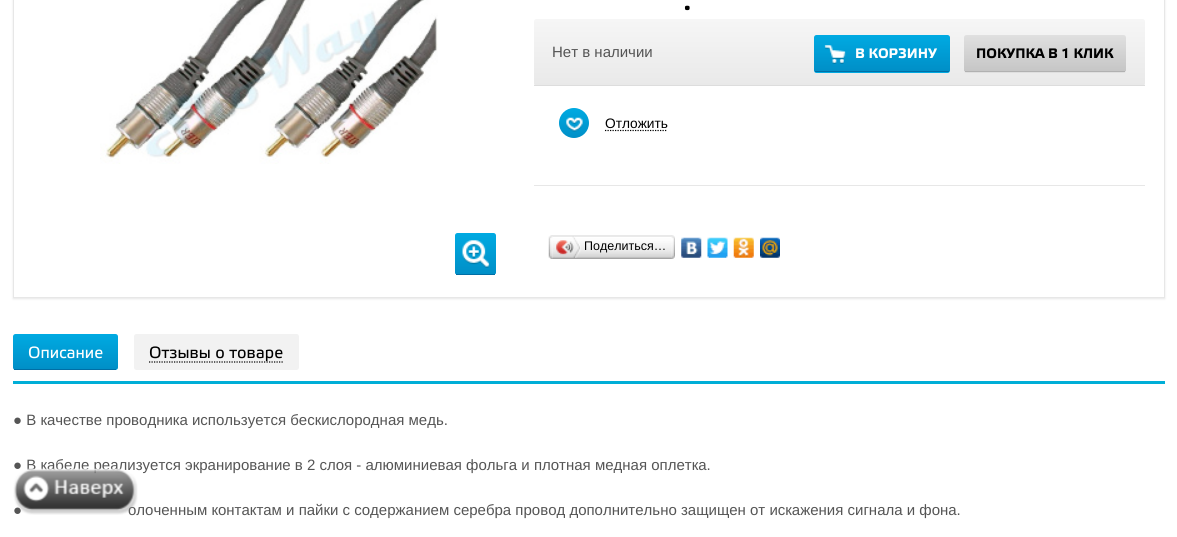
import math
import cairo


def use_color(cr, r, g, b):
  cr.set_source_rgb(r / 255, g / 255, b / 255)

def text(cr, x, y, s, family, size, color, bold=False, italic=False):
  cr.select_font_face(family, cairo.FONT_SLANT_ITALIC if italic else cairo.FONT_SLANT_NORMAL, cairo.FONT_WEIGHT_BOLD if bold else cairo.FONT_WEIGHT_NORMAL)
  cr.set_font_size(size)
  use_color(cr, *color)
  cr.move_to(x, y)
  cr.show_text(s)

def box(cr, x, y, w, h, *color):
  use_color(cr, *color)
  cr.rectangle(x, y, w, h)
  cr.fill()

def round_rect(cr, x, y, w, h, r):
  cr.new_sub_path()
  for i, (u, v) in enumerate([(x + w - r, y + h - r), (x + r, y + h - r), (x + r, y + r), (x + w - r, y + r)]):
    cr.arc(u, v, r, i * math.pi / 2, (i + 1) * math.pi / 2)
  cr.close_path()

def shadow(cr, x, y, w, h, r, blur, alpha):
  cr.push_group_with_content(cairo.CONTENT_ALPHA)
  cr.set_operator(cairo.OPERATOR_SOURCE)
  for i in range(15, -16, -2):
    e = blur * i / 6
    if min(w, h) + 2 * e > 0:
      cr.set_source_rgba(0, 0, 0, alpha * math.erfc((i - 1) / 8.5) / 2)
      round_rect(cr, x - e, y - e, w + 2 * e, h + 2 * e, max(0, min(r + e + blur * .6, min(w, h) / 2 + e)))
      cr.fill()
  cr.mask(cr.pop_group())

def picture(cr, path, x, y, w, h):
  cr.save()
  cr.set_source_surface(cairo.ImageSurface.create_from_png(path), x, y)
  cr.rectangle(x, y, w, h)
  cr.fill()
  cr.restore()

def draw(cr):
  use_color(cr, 255, 255, 255)
  cr.paint()
  cr.save()
  cr.set_fill_rule(cairo.FILL_RULE_EVEN_ODD)
  cr.new_path()
  cr.move_to(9, 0)
  cr.line_to(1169, 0)
  cr.line_to(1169, 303)
  cr.line_to(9, 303)
  cr.close_path()
  cr.move_to(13, -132)
  cr.line_to(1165, -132)
  cr.line_to(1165, 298)
  cr.line_to(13, 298)
  cr.close_path()
  cr.clip()
  use_color(cr, 231, 231, 231)
  shadow(cr, 13, -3, 1152, 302, 0, 1, 1)
  cr.restore()
  cr.rectangle(13.5, -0.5, 1151, 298)
  use_color(cr, 231, 231, 231)
  cr.set_line_width(1)
  cr.stroke()
  picture(cr, "img_01.png", 100, 0, 338, 164)
  cr.save()
  round_rect(cr, 455, 233, 41, 42, 2.5)
  cr.clip()
  gradient = cairo.LinearGradient(476, 233, 476, 274)
  gradient.add_color_stop_rgba(0, 0, 0.667, 0.886, 1)
  gradient.add_color_stop_rgba(1, 0, 0.561, 0.78, 1)
  cr.set_source(gradient)
  cr.new_path()
  cr.move_to(457.5, 233)
  cr.line_to(493.5, 233)
  cr.curve_to(495, 233, 496, 234, 496, 235.5)
  cr.line_to(496, 274)
  cr.line_to(455, 274)
  cr.line_to(455, 235.5)
  cr.curve_to(455, 234, 456, 233, 457.5, 233)
  cr.close_path()
  cr.fill()
  cr.restore()
  box(cr, 456, 274, 39, 1, 0, 110, 165)
  picture(cr, "img_02.png", 461, 240, 29, 28)
  cr.save()
  round_rect(cr, 534, 19, 611, 67, 2.5)
  cr.clip()
  gradient = cairo.LinearGradient(839, 19, 839, 85)
  gradient.add_color_stop_rgba(0, 0.965, 0.965, 0.965, 1)
  gradient.add_color_stop_rgba(1, 0.914, 0.914, 0.914, 1)
  cr.set_source(gradient)
  cr.new_path()
  cr.move_to(536.5, 19)
  cr.line_to(1142.5, 19)
  cr.curve_to(1144, 19, 1145, 20, 1145, 21.5)
  cr.line_to(1145, 85)
  cr.line_to(534, 85)
  cr.line_to(534, 21.5)
  cr.curve_to(534, 20, 535, 19, 536.5, 19)
  cr.close_path()
  cr.fill()
  cr.restore()
  box(cr, 534, 85, 611, 1, 221, 221, 221)
  cr.save()
  round_rect(cr, 814, 35, 136, 38, 2.5)
  cr.clip()
  gradient = cairo.LinearGradient(882, 35, 882, 71)
  gradient.add_color_stop_rgba(0, 0, 0.667, 0.886, 1)
  gradient.add_color_stop_rgba(1, 0, 0.561, 0.78, 1)
  cr.set_source(gradient)
  cr.new_path()
  cr.move_to(816.5, 35)
  cr.line_to(947.5, 35)
  cr.curve_to(949, 35, 950, 36, 950, 37.5)
  cr.line_to(950, 71)
  cr.line_to(814, 71)
  cr.line_to(814, 37.5)
  cr.curve_to(814, 36, 815, 35, 816.5, 35)
  cr.close_path()
  cr.fill()
  gradient = cairo.LinearGradient(882, 71, 882, 108)
  gradient.add_color_stop_rgba(0, 0, 0.667, 0.886, 1)
  gradient.add_color_stop_rgba(1, 0, 0.561, 0.78, 1)
  cr.set_source(gradient)
  cr.rectangle(814, 71, 136, 2)
  cr.fill()
  cr.restore()
  box(cr, 815, 71, 134, 1, 0, 110, 165)
  picture(cr, "img_03.png", 824, 45, 22, 19)
  cr.save()
  round_rect(cr, 964, 35, 162, 38, 2.5)
  cr.clip()
  gradient = cairo.LinearGradient(1045, 35, 1045, 71)
  gradient.add_color_stop_rgba(0, 0.878, 0.878, 0.878, 1)
  gradient.add_color_stop_rgba(1, 0.776, 0.776, 0.776, 1)
  cr.set_source(gradient)
  cr.new_path()
  cr.move_to(966.5, 35)
  cr.line_to(1123.5, 35)
  cr.curve_to(1125, 35, 1126, 36, 1126, 37.5)
  cr.line_to(1126, 71)
  cr.line_to(964, 71)
  cr.line_to(964, 37.5)
  cr.curve_to(964, 36, 965, 35, 966.5, 35)
  cr.close_path()
  cr.fill()
  gradient = cairo.LinearGradient(1045, 71, 1045, 108)
  gradient.add_color_stop_rgba(0, 0.878, 0.878, 0.878, 1)
  gradient.add_color_stop_rgba(1, 0.776, 0.776, 0.776, 1)
  cr.set_source(gradient)
  cr.rectangle(964, 71, 162, 2)
  cr.fill()
  cr.restore()
  box(cr, 965, 71, 160, 1, 177, 177, 177)
  gradient = cairo.LinearGradient(574, 108, 574, 138)
  gradient.add_color_stop_rgba(0, 0, 0.667, 0.886, 1)
  gradient.add_color_stop_rgba(1, 0, 0.561, 0.78, 1)
  cr.set_source(gradient)
  cr.arc(574, 123, 15, 0, 2 * math.pi)
  cr.fill()
  picture(cr, "img_04.png", 566, 117, 17, 15)
  cr.new_path()
  cr.move_to(605, 130.5)
  cr.line_to(667.5, 130.5)
  use_color(cr, 0, 0, 0)
  cr.set_line_width(1.2)
  cr.set_dash([1.25, 1.25])
  cr.stroke()
  box(cr, 534, 185, 611, 1, 231, 231, 231)
  picture(cr, "img_05.png", 552, 235, 120, 24)
  picture(cr, "img_06.png", 548, 235, 5, 24)
  picture(cr, "img_07.png", 556, 236, 25, 22)
  picture(cr, "img_08.png", 671, 235, 4, 24)
  picture(cr, "img_09.png", 681, 237, 21, 21)
  picture(cr, "img_10.png", 707, 237, 21, 21)
  picture(cr, "img_11.png", 733, 237, 21, 21)
  picture(cr, "img_12.png", 760, 237, 20, 21)
  box(cr, 13, 381, 1152, 3, 0, 174, 215)
  cr.save()
  round_rect(cr, 13, 334, 105, 36, 2.5)
  cr.clip()
  gradient = cairo.LinearGradient(65, 334, 65, 369)
  gradient.add_color_stop_rgba(0, 0, 0.667, 0.886, 1)
  gradient.add_color_stop_rgba(1, 0, 0.561, 0.78, 1)
  cr.set_source(gradient)
  cr.new_path()
  cr.move_to(15.5, 334)
  cr.line_to(115.5, 334)
  cr.curve_to(117, 334, 118, 335, 118, 336.5)
  cr.line_to(118, 369)
  cr.line_to(13, 369)
  cr.line_to(13, 336.5)
  cr.curve_to(13, 335, 14, 334, 15.5, 334)
  cr.close_path()
  cr.fill()
  gradient = cairo.LinearGradient(65, 369, 65, 404)
  gradient.add_color_stop_rgba(0, 0, 0.667, 0.886, 1)
  gradient.add_color_stop_rgba(1, 0, 0.561, 0.78, 1)
  cr.set_source(gradient)
  cr.rectangle(13, 369, 105, 1)
  cr.fill()
  cr.restore()
  box(cr, 14, 369, 102, 1, 0, 110, 165)
  use_color(cr, 242, 242, 242)
  round_rect(cr, 134, 334, 165, 36, 2.5)
  cr.fill()
  cr.new_path()
  cr.move_to(149, 362)
  cr.line_to(284, 362)
  use_color(cr, 0, 0, 0)
  cr.stroke()
  text(cr, 683, 10, ".", "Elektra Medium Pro", 30, (0, 0, 0))
  text(cr, 552, 57, "Нет в наличии", "Liberation Sans", 15, (85, 85, 85))
  text(cr, 855, 58, "В КОРЗИНУ", "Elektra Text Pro", 13.75, (255, 255, 255), bold=True)
  text(cr, 976, 58, "ПОКУПКА В 1 КЛИК", "Elektra Text Pro", 13.75, (0, 0, 0), bold=True)
  text(cr, 605, 128, "Отложить", "Liberation Sans", 13.75, (0, 0, 0))
  text(cr, 584, 250, "Поделиться…", "Liberation Sans", 12.5, (0, 0, 0))
  text(cr, 28, 358, "Описание", "Elektra Text Pro", 16.25, (255, 255, 255))
  text(cr, 149, 358, "Отзывы о товаре", "Elektra Text Pro", 16.25, (0, 0, 0))
  text(cr, 13, 425, "● В качестве проводника используется бескислородная медь.", "Liberation Sans", 15, (85, 85, 85))
  text(cr, 13, 470, "● В кабеле реализуется экранирование в 2 слоя - алюминиевая фольга и плотная медная оплетка.", "Liberation Sans", 15, (85, 85, 85))
  text(cr, 13, 515, "●", "Liberation Sans", 15, (85, 85, 85))
  text(cr, 128, 515, "олоченным контактам и пайки с содержанием серебра провод дополнительно защищен от искажения сигнала и фона.", "Liberation Sans", 15, (85, 85, 85))
  picture(cr, "img_13.png", 13, 468, 125, 47)


surface = cairo.ImageSurface(cairo.FORMAT_RGB24, 1177, 537)
cr = cairo.Context(surface)
options = cairo.FontOptions()
options.set_hint_metrics(cairo.HINT_METRICS_OFF)
options.set_hint_style(cairo.HINT_STYLE_NONE)
cr.set_font_options(options)
cr.set_miter_limit(4)
draw(cr)
surface.write_to_png("out.png")
